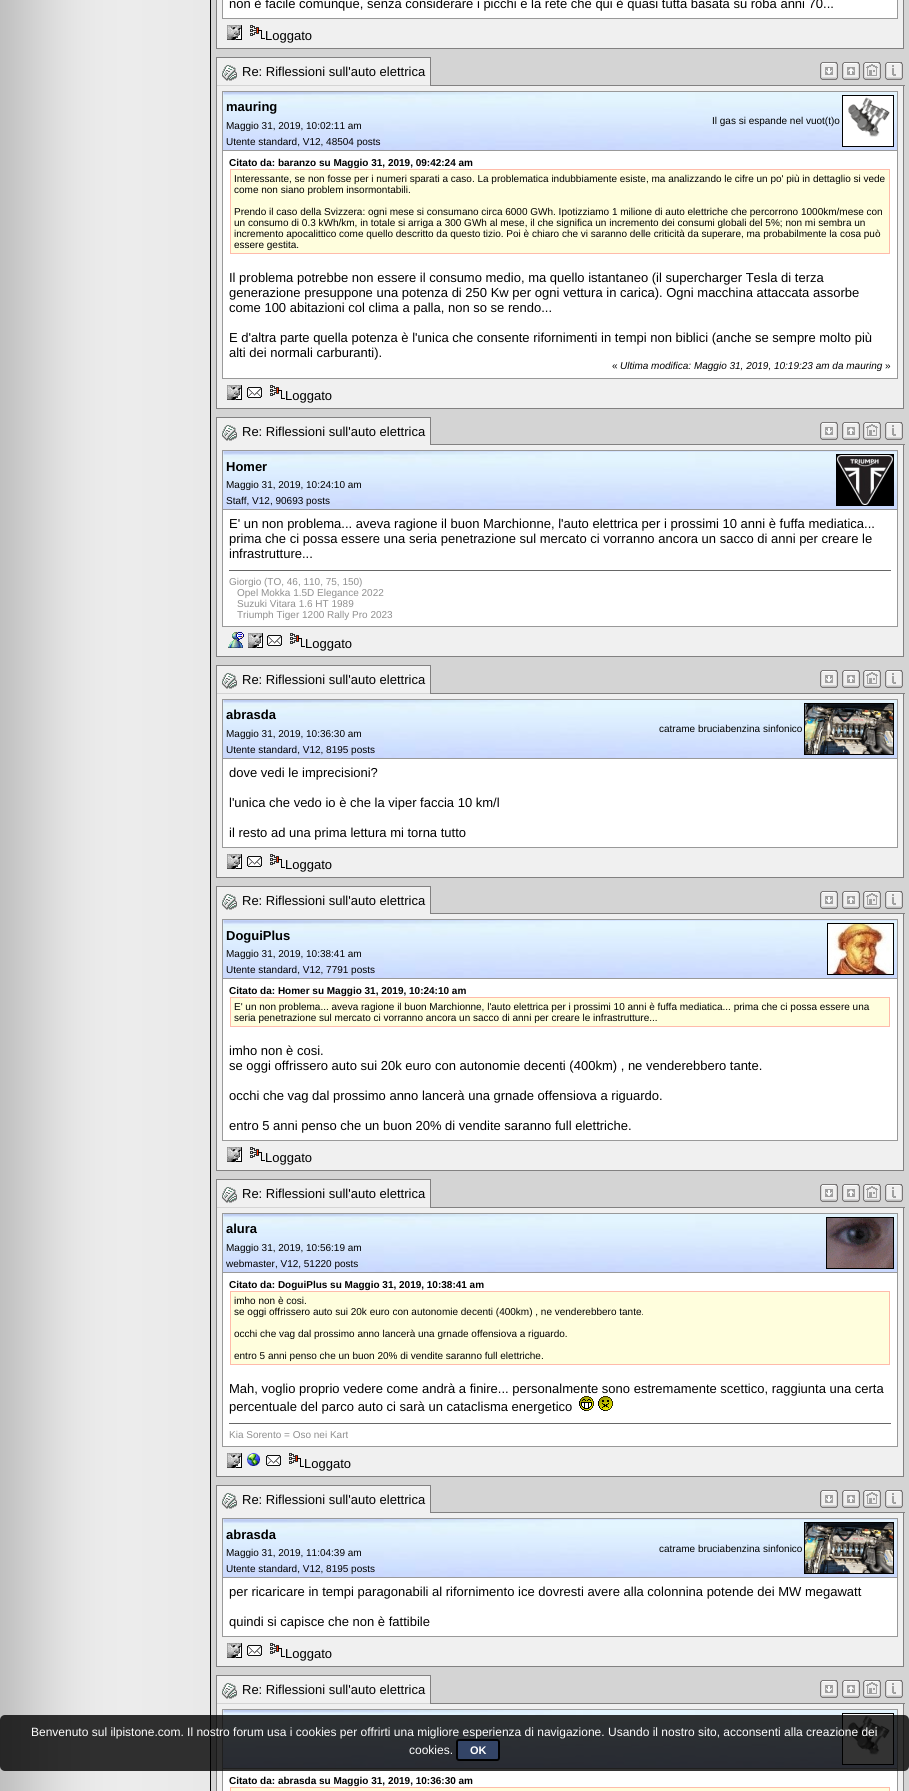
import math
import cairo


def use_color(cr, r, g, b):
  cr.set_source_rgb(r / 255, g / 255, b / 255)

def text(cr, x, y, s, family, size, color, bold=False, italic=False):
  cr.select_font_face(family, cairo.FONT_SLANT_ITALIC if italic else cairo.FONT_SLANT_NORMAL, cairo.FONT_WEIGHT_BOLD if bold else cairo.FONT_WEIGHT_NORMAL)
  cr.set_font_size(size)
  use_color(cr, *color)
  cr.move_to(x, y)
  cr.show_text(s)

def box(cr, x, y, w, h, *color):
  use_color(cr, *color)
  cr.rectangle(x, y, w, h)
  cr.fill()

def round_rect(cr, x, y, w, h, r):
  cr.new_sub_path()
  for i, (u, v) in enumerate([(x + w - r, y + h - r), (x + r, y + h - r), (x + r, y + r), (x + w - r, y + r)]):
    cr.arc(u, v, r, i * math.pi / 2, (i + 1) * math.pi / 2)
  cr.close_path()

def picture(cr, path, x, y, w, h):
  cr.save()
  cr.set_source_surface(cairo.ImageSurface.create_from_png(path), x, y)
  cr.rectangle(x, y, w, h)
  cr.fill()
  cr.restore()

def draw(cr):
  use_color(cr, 255, 255, 255)
  cr.paint()
  picture(cr, "img_01.png", 0, 0, 210, 1791)
  box(cr, 211, 0, 698, 1791, 212, 212, 212)
  box(cr, 210, 0, 1, 1791, 0, 0, 0)
  box(cr, 217, 0, 686, 48, 240, 240, 240)
  box(cr, 903, 0, 1, 49, 130, 129, 129)
  box(cr, 216, 48, 688, 1, 130, 129, 129)
  box(cr, 216, 0, 1, 49, 130, 129, 129)
  box(cr, 897, 0, 1, 19, 153, 153, 153)
  box(cr, 222, 18, 676, 1, 153, 153, 153)
  box(cr, 222, 0, 1, 19, 153, 153, 153)
  box(cr, 223, 0, 674, 18, 255, 255, 255)
  picture(cr, "img_02.png", 227, 25, 15, 15)
  picture(cr, "img_03.png", 250, 25, 15, 14)
  box(cr, 217, 58, 213, 27, 240, 240, 240)
  box(cr, 216, 57, 215, 1, 130, 129, 129)
  box(cr, 216, 57, 1, 29, 130, 129, 129)
  picture(cr, "img_04.png", 222, 65, 15, 16)
  box(cr, 430, 85, 475, 1, 130, 129, 129)
  picture(cr, "img_05.png", 820, 62, 18, 18)
  picture(cr, "img_06.png", 842, 62, 18, 18)
  picture(cr, "img_07.png", 863, 62, 18, 18)
  picture(cr, "img_08.png", 885, 62, 18, 18)
  box(cr, 430, 57, 1, 29, 130, 129, 129)
  box(cr, 217, 86, 686, 322, 240, 240, 240)
  box(cr, 903, 85, 1, 324, 130, 129, 129)
  box(cr, 216, 408, 688, 1, 130, 129, 129)
  box(cr, 216, 85, 1, 324, 130, 129, 129)
  box(cr, 222, 91, 676, 1, 153, 153, 153)
  box(cr, 897, 91, 1, 288, 153, 153, 153)
  box(cr, 222, 378, 676, 1, 153, 153, 153)
  box(cr, 222, 91, 1, 288, 153, 153, 153)
  picture(cr, "img_09.png", 223, 92, 674, 58)
  cr.rectangle(842.5, 95.5, 51, 51)
  use_color(cr, 0, 0, 0)
  cr.set_line_width(1)
  cr.stroke()
  picture(cr, "img_10.png", 843, 96, 50, 50)
  box(cr, 223, 151, 674, 227, 255, 255, 255)
  box(cr, 222, 150, 676, 1, 153, 153, 153)
  use_color(cr, 255, 254, 221)
  cr.rectangle(230.5, 169.5, 659, 84)
  cr.fill_preserve()
  use_color(cr, 255, 187, 170)
  cr.stroke()
  picture(cr, "img_02.png", 227, 385, 15, 15)
  picture(cr, "img_11.png", 247, 387, 15, 11)
  picture(cr, "img_03.png", 270, 385, 15, 14)
  box(cr, 217, 418, 213, 27, 240, 240, 240)
  box(cr, 216, 417, 215, 1, 130, 129, 129)
  box(cr, 216, 417, 1, 28, 130, 129, 129)
  picture(cr, "img_04.png", 222, 425, 15, 16)
  box(cr, 430, 444, 475, 1, 130, 129, 129)
  picture(cr, "img_05.png", 820, 422, 18, 18)
  picture(cr, "img_06.png", 842, 422, 18, 18)
  picture(cr, "img_07.png", 863, 422, 18, 18)
  picture(cr, "img_08.png", 885, 422, 18, 18)
  box(cr, 430, 417, 1, 28, 130, 129, 129)
  box(cr, 217, 445, 686, 211, 240, 240, 240)
  box(cr, 903, 445, 1, 212, 130, 129, 129)
  box(cr, 216, 656, 688, 1, 130, 129, 129)
  box(cr, 216, 445, 1, 212, 130, 129, 129)
  box(cr, 222, 450, 676, 1, 153, 153, 153)
  box(cr, 897, 450, 1, 177, 153, 153, 153)
  box(cr, 222, 626, 676, 1, 153, 153, 153)
  box(cr, 222, 450, 1, 177, 153, 153, 153)
  picture(cr, "img_12.png", 223, 451, 674, 58)
  cr.rectangle(836.5, 454.5, 57, 51)
  use_color(cr, 0, 0, 0)
  cr.stroke()
  picture(cr, "img_13.png", 837, 455, 56, 50)
  box(cr, 223, 510, 674, 116, 255, 255, 255)
  box(cr, 222, 509, 676, 1, 153, 153, 153)
  box(cr, 229, 570, 662, 1, 102, 102, 102)
  picture(cr, "img_14.png", 228, 632, 16, 16)
  picture(cr, "img_02.png", 248, 633, 15, 15)
  picture(cr, "img_11.png", 267, 635, 15, 11)
  picture(cr, "img_03.png", 290, 633, 15, 14)
  box(cr, 217, 666, 213, 27, 240, 240, 240)
  box(cr, 216, 665, 215, 1, 130, 129, 129)
  box(cr, 216, 665, 1, 29, 130, 129, 129)
  picture(cr, "img_04.png", 222, 673, 15, 16)
  box(cr, 430, 693, 475, 1, 130, 129, 129)
  picture(cr, "img_05.png", 820, 670, 18, 18)
  picture(cr, "img_06.png", 842, 670, 18, 18)
  picture(cr, "img_07.png", 863, 670, 18, 18)
  picture(cr, "img_08.png", 885, 670, 18, 18)
  box(cr, 430, 665, 1, 29, 130, 129, 129)
  box(cr, 217, 694, 686, 183, 240, 240, 240)
  box(cr, 903, 693, 1, 185, 130, 129, 129)
  box(cr, 216, 877, 688, 1, 130, 129, 129)
  box(cr, 216, 693, 1, 185, 130, 129, 129)
  box(cr, 222, 699, 676, 1, 153, 153, 153)
  box(cr, 897, 699, 1, 149, 153, 153, 153)
  box(cr, 222, 847, 676, 1, 153, 153, 153)
  box(cr, 222, 699, 1, 149, 153, 153, 153)
  picture(cr, "img_09.png", 223, 700, 674, 58)
  cr.rectangle(804.5, 703.5, 89, 51)
  use_color(cr, 0, 0, 0)
  cr.stroke()
  picture(cr, "img_15.png", 805, 704, 88, 50)
  box(cr, 223, 759, 674, 88, 255, 255, 255)
  box(cr, 222, 758, 676, 1, 153, 153, 153)
  picture(cr, "img_02.png", 227, 854, 15, 15)
  picture(cr, "img_11.png", 247, 856, 15, 11)
  picture(cr, "img_03.png", 270, 854, 15, 14)
  box(cr, 217, 887, 213, 27, 240, 240, 240)
  box(cr, 216, 886, 215, 1, 130, 129, 129)
  box(cr, 216, 886, 1, 28, 130, 129, 129)
  picture(cr, "img_04.png", 222, 894, 15, 16)
  box(cr, 430, 913, 475, 1, 130, 129, 129)
  picture(cr, "img_05.png", 820, 891, 18, 18)
  picture(cr, "img_06.png", 842, 891, 18, 18)
  picture(cr, "img_07.png", 863, 891, 18, 18)
  picture(cr, "img_08.png", 885, 891, 18, 18)
  box(cr, 430, 886, 1, 28, 130, 129, 129)
  box(cr, 217, 914, 686, 256, 240, 240, 240)
  box(cr, 903, 914, 1, 257, 130, 129, 129)
  box(cr, 216, 1170, 688, 1, 130, 129, 129)
  box(cr, 216, 914, 1, 257, 130, 129, 129)
  box(cr, 222, 919, 676, 1, 153, 153, 153)
  box(cr, 897, 919, 1, 222, 153, 153, 153)
  box(cr, 222, 1140, 676, 1, 153, 153, 153)
  box(cr, 222, 919, 1, 222, 153, 153, 153)
  picture(cr, "img_12.png", 223, 920, 674, 58)
  cr.rectangle(827.5, 923.5, 66, 51)
  use_color(cr, 0, 0, 0)
  cr.stroke()
  picture(cr, "img_16.png", 828, 924, 65, 50)
  box(cr, 223, 979, 674, 161, 255, 255, 255)
  box(cr, 222, 978, 676, 1, 153, 153, 153)
  use_color(cr, 255, 254, 221)
  cr.rectangle(230.5, 997.5, 659, 29)
  cr.fill_preserve()
  use_color(cr, 255, 187, 170)
  cr.stroke()
  picture(cr, "img_02.png", 227, 1147, 15, 15)
  picture(cr, "img_03.png", 250, 1147, 15, 14)
  box(cr, 217, 1180, 213, 27, 240, 240, 240)
  box(cr, 216, 1179, 215, 1, 130, 129, 129)
  box(cr, 216, 1179, 1, 29, 130, 129, 129)
  picture(cr, "img_04.png", 222, 1187, 15, 16)
  box(cr, 430, 1207, 475, 1, 130, 129, 129)
  picture(cr, "img_05.png", 820, 1184, 18, 18)
  picture(cr, "img_06.png", 842, 1184, 18, 18)
  picture(cr, "img_07.png", 863, 1184, 18, 18)
  picture(cr, "img_08.png", 885, 1184, 18, 18)
  box(cr, 430, 1179, 1, 29, 130, 129, 129)
  box(cr, 217, 1208, 686, 268, 240, 240, 240)
  box(cr, 903, 1207, 1, 270, 130, 129, 129)
  box(cr, 216, 1476, 688, 1, 130, 129, 129)
  box(cr, 216, 1207, 1, 270, 130, 129, 129)
  box(cr, 222, 1213, 676, 1, 153, 153, 153)
  box(cr, 897, 1213, 1, 234, 153, 153, 153)
  box(cr, 222, 1446, 676, 1, 153, 153, 153)
  box(cr, 222, 1213, 1, 234, 153, 153, 153)
  picture(cr, "img_09.png", 223, 1214, 674, 58)
  cr.rectangle(826.5, 1217.5, 67, 51)
  use_color(cr, 0, 0, 0)
  cr.stroke()
  picture(cr, "img_17.png", 827, 1218, 66, 50)
  box(cr, 223, 1273, 674, 173, 255, 255, 255)
  box(cr, 222, 1272, 676, 1, 153, 153, 153)
  use_color(cr, 255, 254, 221)
  cr.rectangle(230.5, 1291.5, 659, 73)
  cr.fill_preserve()
  use_color(cr, 255, 187, 170)
  cr.stroke()
  picture(cr, "img_18.png", 579, 1396, 15, 15)
  picture(cr, "img_19.png", 598, 1396, 15, 15)
  box(cr, 229, 1423, 662, 1, 102, 102, 102)
  picture(cr, "img_02.png", 227, 1453, 15, 15)
  picture(cr, "img_20.png", 247, 1453, 13, 13)
  picture(cr, "img_11.png", 266, 1455, 15, 11)
  picture(cr, "img_03.png", 289, 1453, 15, 14)
  box(cr, 217, 1486, 213, 27, 240, 240, 240)
  box(cr, 216, 1485, 215, 1, 130, 129, 129)
  box(cr, 216, 1485, 1, 28, 130, 129, 129)
  picture(cr, "img_04.png", 222, 1493, 15, 16)
  box(cr, 430, 1512, 475, 1, 130, 129, 129)
  picture(cr, "img_05.png", 820, 1490, 18, 18)
  picture(cr, "img_06.png", 842, 1490, 18, 18)
  picture(cr, "img_07.png", 863, 1490, 18, 18)
  picture(cr, "img_08.png", 885, 1490, 18, 18)
  box(cr, 430, 1485, 1, 28, 130, 129, 129)
  box(cr, 217, 1513, 686, 153, 240, 240, 240)
  box(cr, 903, 1513, 1, 154, 130, 129, 129)
  box(cr, 216, 1666, 688, 1, 130, 129, 129)
  box(cr, 216, 1513, 1, 154, 130, 129, 129)
  box(cr, 222, 1518, 676, 1, 153, 153, 153)
  box(cr, 897, 1518, 1, 119, 153, 153, 153)
  box(cr, 222, 1636, 676, 1, 153, 153, 153)
  box(cr, 222, 1518, 1, 119, 153, 153, 153)
  picture(cr, "img_21.png", 223, 1519, 674, 58)
  cr.rectangle(804.5, 1522.5, 89, 51)
  use_color(cr, 0, 0, 0)
  cr.stroke()
  picture(cr, "img_15.png", 805, 1523, 88, 50)
  box(cr, 223, 1578, 674, 58, 255, 255, 255)
  box(cr, 222, 1577, 676, 1, 153, 153, 153)
  picture(cr, "img_02.png", 227, 1643, 15, 15)
  picture(cr, "img_11.png", 247, 1645, 15, 11)
  picture(cr, "img_03.png", 270, 1643, 15, 14)
  box(cr, 217, 1676, 213, 27, 240, 240, 240)
  box(cr, 216, 1675, 215, 1, 130, 129, 129)
  box(cr, 216, 1675, 1, 116, 130, 129, 129)
  picture(cr, "img_04.png", 222, 1683, 15, 16)
  box(cr, 430, 1703, 475, 1, 130, 129, 129)
  picture(cr, "img_05.png", 820, 1680, 18, 18)
  picture(cr, "img_06.png", 842, 1680, 18, 18)
  picture(cr, "img_07.png", 863, 1680, 18, 18)
  picture(cr, "img_08.png", 885, 1680, 18, 18)
  box(cr, 430, 1675, 1, 29, 130, 129, 129)
  box(cr, 217, 1704, 686, 87, 240, 240, 240)
  box(cr, 903, 1703, 1, 88, 130, 129, 129)
  box(cr, 222, 1709, 676, 1, 153, 153, 153)
  box(cr, 897, 1709, 1, 82, 153, 153, 153)
  box(cr, 222, 1709, 1, 82, 153, 153, 153)
  picture(cr, "img_09.png", 223, 1710, 674, 58)
  cr.rectangle(842.5, 1713.5, 51, 51)
  use_color(cr, 0, 0, 0)
  cr.stroke()
  picture(cr, "img_10.png", 843, 1714, 50, 50)
  box(cr, 223, 1769, 674, 22, 255, 255, 255)
  box(cr, 222, 1768, 676, 1, 153, 153, 153)
  use_color(cr, 255, 254, 221)
  cr.rectangle(230.5, 1787.5, 659, 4)
  cr.fill_preserve()
  use_color(cr, 255, 187, 170)
  cr.stroke()
  cr.set_source_rgba(0, 0, 0, 0.8)
  round_rect(cr, 0, 1715, 909, 56, 5)
  cr.fill()
  use_color(cr, 51, 68, 102)
  round_rect(cr, 457, 1740, 42, 20, 2)
  cr.fill_preserve()
  use_color(cr, 0, 0, 0)
  cr.set_line_width(2)
  cr.stroke()
  text(cr, 229, 8, "non è facile comunque, senza considerare i picchi e la rete che qui è quasi tutta basata su roba anni 70...", "Liberation Sans", 13, (0, 0, 0))
  text(cr, 265, 40, "Loggato", "Liberation Sans", 13, (0, 0, 0))
  text(cr, 242, 76, "Re: Riflessioni sull'auto elettrica", "Liberation Sans", 13, (0, 0, 0))
  text(cr, 226, 111, "mauring", "Liberation Sans", 13, (0, 0, 0), bold=True)
  text(cr, 712, 124, "Il gas si espande nel vuot(t)o", "Liberation Sans", 10, (0, 0, 0))
  text(cr, 226, 129, "Maggio 31, 2019, 10:02:11 am", "Liberation Sans", 10, (0, 0, 0))
  text(cr, 226, 145, "Utente standard, V12, 48504 posts", "Liberation Sans", 10, (0, 0, 0))
  text(cr, 229, 166, "Citato da: baranzo su Maggio 31, 2019, 09:42:24 am", "Liberation Sans", 10, (0, 0, 0), bold=True)
  text(cr, 234, 182, "Interessante, se non fosse per i numeri sparati a caso. La problematica indubbiamente esiste, ma analizzando le cifre un po' più in dettaglio si vede", "Liberation Sans", 10, (0, 0, 0))
  text(cr, 234, 193, "come non siano problem insormontabili.", "Liberation Sans", 10, (0, 0, 0))
  text(cr, 234, 215, "Prendo il caso della Svizzera: ogni mese si consumano circa 6000 GWh. Ipotizziamo 1 milione di auto elettriche che percorrono 1000km/mese con", "Liberation Sans", 10, (0, 0, 0))
  text(cr, 234, 226, "un consumo di 0.3 kWh/km, in totale si arriga a 300 GWh al mese, il che significa un incremento dei consumi globali del 5%; non mi sembra un", "Liberation Sans", 10, (0, 0, 0))
  text(cr, 234, 237, "incremento apocalittico come quello descritto da questo tizio. Poi è chiaro che vi saranno delle criticità da superare, ma probabilmente la cosa può", "Liberation Sans", 10, (0, 0, 0))
  text(cr, 234, 248, "essere gestita.", "Liberation Sans", 10, (0, 0, 0))
  text(cr, 229, 282, "Il problema potrebbe non essere il consumo medio, ma quello istantaneo (il supercharger Tesla di terza", "Liberation Sans", 13, (0, 0, 0))
  text(cr, 229, 297, "generazione presuppone una potenza di 250 Kw per ogni vettura in carica). Ogni macchina attaccata assorbe", "Liberation Sans", 13, (0, 0, 0))
  text(cr, 229, 312, "come 100 abitazioni col clima a palla, non so se rendo...", "Liberation Sans", 13, (0, 0, 0))
  text(cr, 229, 342, "E d'altra parte quella potenza è l'unica che consente rifornimenti in tempi non biblici (anche se sempre molto più", "Liberation Sans", 13, (0, 0, 0))
  text(cr, 229, 357, "alti dei normali carburanti).", "Liberation Sans", 13, (0, 0, 0))
  text(cr, 612, 369, "«", "Liberation Sans", 10, (0, 0, 0))
  text(cr, 620, 369, "Ultima modifica: Maggio 31, 2019, 10:19:23 am da mauring", "Liberation Sans", 10, (0, 0, 0), italic=True)
  text(cr, 885, 369, "»", "Liberation Sans", 10, (0, 0, 0))
  text(cr, 285, 400, "Loggato", "Liberation Sans", 13, (0, 0, 0))
  text(cr, 242, 436, "Re: Riflessioni sull'auto elettrica", "Liberation Sans", 13, (0, 0, 0))
  text(cr, 226, 471, "Homer", "Liberation Sans", 13, (0, 0, 0), bold=True)
  text(cr, 226, 488, "Maggio 31, 2019, 10:24:10 am", "Liberation Sans", 10, (0, 0, 0))
  text(cr, 226, 504, "Staff, V12, 90693 posts", "Liberation Sans", 10, (0, 0, 0))
  text(cr, 229, 528, "E' un non problema... aveva ragione il buon Marchionne, l'auto elettrica per i prossimi 10 anni è fuffa mediatica...", "Liberation Sans", 13, (0, 0, 0))
  text(cr, 229, 543, "prima che ci possa essere una seria penetrazione sul mercato ci vorranno ancora un sacco di anni per creare le", "Liberation Sans", 13, (0, 0, 0))
  text(cr, 229, 558, "infrastrutture...", "Liberation Sans", 13, (0, 0, 0))
  text(cr, 229, 585, "Giorgio (TO, 46, 110, 75, 150)", "Liberation Sans", 10, (143, 143, 143))
  text(cr, 237, 596, "Opel Mokka 1.5D Elegance 2022", "Liberation Sans", 10, (143, 143, 143))
  text(cr, 237, 607, "Suzuki Vitara 1.6 HT 1989", "Liberation Sans", 10, (143, 143, 143))
  text(cr, 237, 618, "Triumph Tiger 1200 Rally Pro 2023", "Liberation Sans", 10, (143, 143, 143))
  text(cr, 305, 648, "Loggato", "Liberation Sans", 13, (0, 0, 0))
  text(cr, 242, 684, "Re: Riflessioni sull'auto elettrica", "Liberation Sans", 13, (0, 0, 0))
  text(cr, 226, 719, "abrasda", "Liberation Sans", 13, (0, 0, 0), bold=True)
  text(cr, 659, 732, "catrame bruciabenzina sinfonico", "Liberation Sans", 10, (0, 0, 0))
  text(cr, 226, 737, "Maggio 31, 2019, 10:36:30 am", "Liberation Sans", 10, (0, 0, 0))
  text(cr, 226, 753, "Utente standard, V12, 8195 posts", "Liberation Sans", 10, (0, 0, 0))
  text(cr, 229, 777, "dove vedi le imprecisioni?", "Liberation Sans", 13, (0, 0, 0))
  text(cr, 229, 807, "l'unica che vedo io è che la viper faccia 10 km/l", "Liberation Sans", 13, (0, 0, 0))
  text(cr, 229, 837, "il resto ad una prima lettura mi torna tutto", "Liberation Sans", 13, (0, 0, 0))
  text(cr, 285, 869, "Loggato", "Liberation Sans", 13, (0, 0, 0))
  text(cr, 242, 905, "Re: Riflessioni sull'auto elettrica", "Liberation Sans", 13, (0, 0, 0))
  text(cr, 226, 940, "DoguiPlus", "Liberation Sans", 13, (0, 0, 0), bold=True)
  text(cr, 226, 957, "Maggio 31, 2019, 10:38:41 am", "Liberation Sans", 10, (0, 0, 0))
  text(cr, 226, 973, "Utente standard, V12, 7791 posts", "Liberation Sans", 10, (0, 0, 0))
  text(cr, 229, 994, "Citato da: Homer su Maggio 31, 2019, 10:24:10 am", "Liberation Sans", 10, (0, 0, 0), bold=True)
  text(cr, 234, 1010, "E' un non problema... aveva ragione il buon Marchionne, l'auto elettrica per i prossimi 10 anni è fuffa mediatica... prima che ci possa essere una", "Liberation Sans", 10, (0, 0, 0))
  text(cr, 234, 1021, "seria penetrazione sul mercato ci vorranno ancora un sacco di anni per creare le infrastrutture...", "Liberation Sans", 10, (0, 0, 0))
  text(cr, 229, 1055, "imho non è cosi.", "Liberation Sans", 13, (0, 0, 0))
  text(cr, 229, 1070, "se oggi offrissero auto sui 20k euro con autonomie decenti (400km) , ne venderebbero tante.", "Liberation Sans", 13, (0, 0, 0))
  text(cr, 229, 1100, "occhi che vag dal prossimo anno lancerà una grnade offensiova a riguardo.", "Liberation Sans", 13, (0, 0, 0))
  text(cr, 229, 1130, "entro 5 anni penso che un buon 20% di vendite saranno full elettriche.", "Liberation Sans", 13, (0, 0, 0))
  text(cr, 265, 1162, "Loggato", "Liberation Sans", 13, (0, 0, 0))
  text(cr, 242, 1198, "Re: Riflessioni sull'auto elettrica", "Liberation Sans", 13, (0, 0, 0))
  text(cr, 226, 1233, "alura", "Liberation Sans", 13, (0, 0, 0), bold=True)
  text(cr, 226, 1251, "Maggio 31, 2019, 10:56:19 am", "Liberation Sans", 10, (0, 0, 0))
  text(cr, 226, 1267, "webmaster, V12, 51220 posts", "Liberation Sans", 10, (0, 0, 0))
  text(cr, 229, 1288, "Citato da: DoguiPlus su Maggio 31, 2019, 10:38:41 am", "Liberation Sans", 10, (0, 0, 0), bold=True)
  text(cr, 234, 1304, "imho non è cosi.", "Liberation Sans", 10, (0, 0, 0))
  text(cr, 234, 1315, "se oggi offrissero auto sui 20k euro con autonomie decenti (400km) , ne venderebbero tante.", "Liberation Sans", 10, (0, 0, 0))
  text(cr, 234, 1337, "occhi che vag dal prossimo anno lancerà una grnade offensiova a riguardo.", "Liberation Sans", 10, (0, 0, 0))
  text(cr, 234, 1359, "entro 5 anni penso che un buon 20% di vendite saranno full elettriche.", "Liberation Sans", 10, (0, 0, 0))
  text(cr, 229, 1393, "Mah, voglio proprio vedere come andrà a finire... personalmente sono estremamente scettico, raggiunta una certa", "Liberation Sans", 13, (0, 0, 0))
  text(cr, 229, 1411, "percentuale del parco auto ci sarà un cataclisma energetico", "Liberation Sans", 13, (0, 0, 0))
  text(cr, 229, 1438, "Kia Sorento = Oso nei Kart", "Liberation Sans", 10, (143, 143, 143))
  text(cr, 304, 1468, "Loggato", "Liberation Sans", 13, (0, 0, 0))
  text(cr, 242, 1504, "Re: Riflessioni sull'auto elettrica", "Liberation Sans", 13, (0, 0, 0))
  text(cr, 226, 1539, "abrasda", "Liberation Sans", 13, (0, 0, 0), bold=True)
  text(cr, 659, 1552, "catrame bruciabenzina sinfonico", "Liberation Sans", 10, (0, 0, 0))
  text(cr, 226, 1556, "Maggio 31, 2019, 11:04:39 am", "Liberation Sans", 10, (0, 0, 0))
  text(cr, 226, 1572, "Utente standard, V12, 8195 posts", "Liberation Sans", 10, (0, 0, 0))
  text(cr, 229, 1596, "per ricaricare in tempi paragonabili al rifornimento ice dovresti avere alla colonnina potende dei MW megawatt", "Liberation Sans", 13, (0, 0, 0))
  text(cr, 229, 1626, "quindi si capisce che non è fattibile", "Liberation Sans", 13, (0, 0, 0))
  text(cr, 285, 1658, "Loggato", "Liberation Sans", 13, (0, 0, 0))
  text(cr, 242, 1694, "Re: Riflessioni sull'auto elettrica", "Liberation Sans", 13, (0, 0, 0))
  text(cr, 229, 1784, "Citato da: abrasda su Maggio 31, 2019, 10:36:30 am", "Liberation Sans", 10, (0, 0, 0), bold=True)
  text(cr, 31, 1736, "Benvenuto sul ilpistone.com. Il nostro forum usa i cookies per offrirti una migliore esperienza di navigazione. Usando il nostro sito, acconsenti alla creazione dei", "Liberation Sans", 12, (255, 255, 255))
  text(cr, 409, 1754, "cookies.", "Liberation Sans", 12, (255, 255, 255))
  text(cr, 470, 1754, "OK", "Liberation Sans", 11, (255, 255, 255), bold=True)


surface = cairo.ImageSurface(cairo.FORMAT_RGB24, 909, 1791)
cr = cairo.Context(surface)
options = cairo.FontOptions()
options.set_hint_metrics(cairo.HINT_METRICS_OFF)
options.set_hint_style(cairo.HINT_STYLE_NONE)
cr.set_font_options(options)
cr.set_miter_limit(4)
draw(cr)
surface.write_to_png("out.png")
